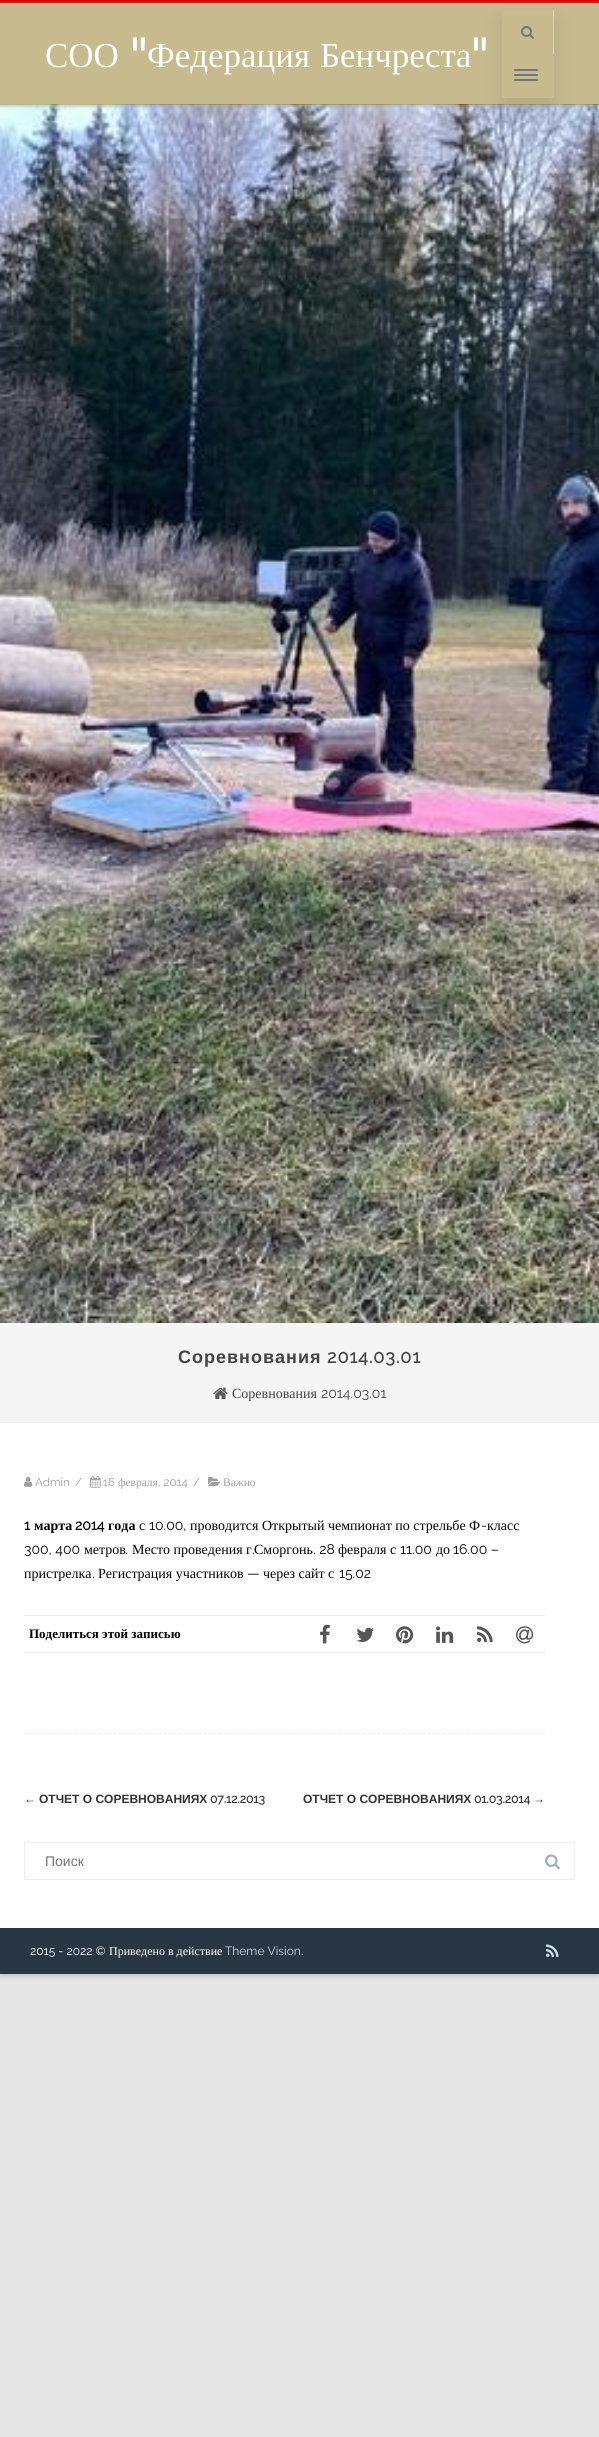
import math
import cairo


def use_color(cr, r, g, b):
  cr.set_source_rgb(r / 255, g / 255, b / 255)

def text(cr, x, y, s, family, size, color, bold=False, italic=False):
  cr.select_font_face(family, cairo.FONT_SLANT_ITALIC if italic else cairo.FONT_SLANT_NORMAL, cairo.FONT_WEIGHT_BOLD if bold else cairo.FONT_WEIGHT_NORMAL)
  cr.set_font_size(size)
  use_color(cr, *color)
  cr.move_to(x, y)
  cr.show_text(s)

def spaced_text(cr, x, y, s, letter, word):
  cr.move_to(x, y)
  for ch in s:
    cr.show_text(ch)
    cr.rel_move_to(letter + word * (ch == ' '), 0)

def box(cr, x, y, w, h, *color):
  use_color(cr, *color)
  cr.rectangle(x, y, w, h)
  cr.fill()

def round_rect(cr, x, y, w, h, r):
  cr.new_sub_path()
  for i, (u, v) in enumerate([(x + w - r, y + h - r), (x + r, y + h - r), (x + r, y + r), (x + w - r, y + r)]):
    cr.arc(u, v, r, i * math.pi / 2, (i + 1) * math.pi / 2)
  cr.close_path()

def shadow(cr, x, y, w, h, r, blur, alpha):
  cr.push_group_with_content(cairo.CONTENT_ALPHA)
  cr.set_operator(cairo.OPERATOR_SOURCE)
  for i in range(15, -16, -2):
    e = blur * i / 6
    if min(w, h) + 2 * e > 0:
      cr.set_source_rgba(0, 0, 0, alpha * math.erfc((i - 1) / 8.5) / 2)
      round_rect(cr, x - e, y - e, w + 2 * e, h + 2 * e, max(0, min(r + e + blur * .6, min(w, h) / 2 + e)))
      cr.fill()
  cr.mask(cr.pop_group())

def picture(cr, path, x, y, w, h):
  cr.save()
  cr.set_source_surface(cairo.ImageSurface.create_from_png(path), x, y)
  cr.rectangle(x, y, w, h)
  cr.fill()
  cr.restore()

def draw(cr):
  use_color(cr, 230, 230, 230)
  cr.paint()
  use_color(cr, 100, 100, 100)
  shadow(cr, 0, 2, 599, 1974, 0, 3, 0.3)
  box(cr, 0, 3, 599, 1925, 255, 255, 255)
  picture(cr, "img_02.png", 0, 104, 599, 1219)
  cr.set_source_rgba(0.533, 0.424, 0.063, 0.47)
  cr.rectangle(0, 3, 599, 102)
  cr.fill()
  box(cr, 0, 0, 599, 3, 218, 4, 1)
  cr.save()
  cr.set_fill_rule(cairo.FILL_RULE_EVEN_ODD)
  cr.new_path()
  cr.move_to(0, 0)
  cr.line_to(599, 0)
  cr.line_to(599, 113)
  cr.line_to(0, 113)
  cr.close_path()
  cr.move_to(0, 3)
  cr.line_to(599, 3)
  cr.line_to(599, 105)
  cr.line_to(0, 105)
  cr.close_path()
  cr.clip()
  use_color(cr, 167, 169, 164)
  shadow(cr, 0, 4, 599, 102, 0, 2, 0.75)
  cr.restore()
  cr.save()
  cr.set_fill_rule(cairo.FILL_RULE_EVEN_ODD)
  cr.new_path()
  cr.move_to(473, 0)
  cr.line_to(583, 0)
  cr.line_to(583, 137)
  cr.line_to(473, 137)
  cr.close_path()
  cr.move_to(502, 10)
  cr.line_to(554, 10)
  cr.line_to(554, 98)
  cr.line_to(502, 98)
  cr.close_path()
  cr.clip()
  use_color(cr, 64, 64, 64)
  shadow(cr, 501, 20, 54, 89, 0, 9, 0.13)
  cr.restore()
  box(cr, 553, 10, 1, 44, 218, 213, 196)
  picture(cr, "img_01.png", 521, 26, 13, 13)
  use_color(cr, 117, 117, 117)
  round_rect(cr, 514, 69, 24, 2, 1)
  cr.fill()
  round_rect(cr, 514, 74, 24, 2, 1)
  cr.fill()
  round_rect(cr, 514, 79, 24, 2, 1)
  cr.fill()
  box(cr, 0, 1323, 599, 99, 245, 245, 245)
  box(cr, 0, 1422, 599, 1, 238, 238, 238)
  picture(cr, "img_03.png", 213, 1387, 15, 12)
  picture(cr, "img_04.png", 24, 1477, 9, 10)
  picture(cr, "img_05.png", 90, 1476, 11, 12)
  picture(cr, "img_06.png", 208, 1476, 12, 10)
  box(cr, 24, 1615, 521, 1, 238, 238, 238)
  box(cr, 24, 1652, 521, 1, 238, 238, 238)
  picture(cr, "img_07.png", 320, 1624, 10, 20)
  picture(cr, "img_08.png", 356, 1627, 18, 15)
  picture(cr, "img_09.png", 396, 1626, 18, 18)
  picture(cr, "img_10.png", 436, 1626, 18, 17)
  picture(cr, "img_11.png", 477, 1626, 16, 16)
  picture(cr, "img_12.png", 516, 1626, 18, 18)
  cr.new_path()
  cr.move_to(24, 1733.5)
  cr.line_to(545, 1733.5)
  cr.set_line_width(1)
  cr.set_dash([3, 1.98])
  cr.stroke()
  cr.rectangle(24.5, 1842.5, 550, 37)
  use_color(cr, 236, 238, 240)
  cr.set_dash([])
  cr.stroke()
  picture(cr, "img_13.png", 545, 1854, 15, 16)
  box(cr, 0, 1928, 599, 46, 41, 55, 68)
  picture(cr, "img_14.png", 546, 1944, 13, 13)
  text(cr, 45, 67, "СОО", "Liberation Serif", 35, (255, 255, 255))
  text(cr, 130, 67, "\"", "Tauri", 35, (255, 255, 255))
  cr.select_font_face("Liberation Serif")
  spaced_text(cr, 147, 67, "Федерация Бенчреста", 0, 1)
  text(cr, 471, 67, "\"", "Tauri", 35, (255, 255, 255))
  cr.select_font_face("Liberation Sans", cairo.FONT_SLANT_NORMAL, cairo.FONT_WEIGHT_BOLD)
  cr.set_font_size(18)
  use_color(cr, 68, 68, 68)
  spaced_text(cr, 178, 1363, "Соревнования", 1, 0)
  cr.select_font_face("Raleway", cairo.FONT_SLANT_NORMAL, cairo.FONT_WEIGHT_BOLD)
  spaced_text(cr, 327, 1363, "2014.03.01", 1, 0)
  text(cr, 232, 1398, "Соревнования", "Liberation Serif", 14, (68, 68, 68))
  text(cr, 321, 1398, "2014.03.01", "Raleway", 14, (68, 68, 68))
  text(cr, 35, 1486, "Admin", "Raleway", 11.5, (159, 159, 159))
  text(cr, 75, 1486, "/", "Raleway", 11.5, (159, 159, 159))
  text(cr, 103, 1486, "16", "Raleway", 11.5, (159, 159, 159))
  text(cr, 118, 1486, "февраля", "Liberation Serif", 11.5, (159, 159, 159))
  text(cr, 158, 1486, ", 2014", "Raleway", 11.5, (159, 159, 159))
  text(cr, 193, 1486, "/", "Raleway", 11.5, (159, 159, 159))
  text(cr, 223, 1486, "Важно", "Liberation Serif", 11.5, (159, 159, 159))
  text(cr, 24, 1530, "1", "Raleway", 14, (2, 2, 2), bold=True)
  text(cr, 34, 1530, "марта", "Liberation Serif", 14, (2, 2, 2), bold=True)
  text(cr, 75, 1530, "2014", "Raleway", 14, (2, 2, 2), bold=True)
  text(cr, 108, 1530, "года", "Liberation Serif", 14, (2, 2, 2), bold=True)
  text(cr, 139, 1530, "с", "Liberation Serif", 14, (2, 2, 2))
  text(cr, 149, 1530, "10.00,", "Raleway", 14, (2, 2, 2))
  text(cr, 190, 1530, "проводится Открытый чемпионат по стрельбе Ф", "Liberation Serif", 14, (2, 2, 2))
  text(cr, 481, 1530, "-", "Raleway", 14, (2, 2, 2))
  text(cr, 487, 1530, "класс", "Liberation Serif", 14, (2, 2, 2))
  text(cr, 24, 1554, "300, 400", "Raleway", 14, (2, 2, 2))
  text(cr, 84, 1554, "метров", "Liberation Serif", 14, (2, 2, 2))
  text(cr, 125, 1554, ".", "Raleway", 14, (2, 2, 2))
  text(cr, 132, 1554, "Место проведения г", "Liberation Serif", 14, (2, 2, 2))
  text(cr, 252, 1554, ".", "Raleway", 14, (2, 2, 2))
  text(cr, 254, 1554, "Сморгонь", "Liberation Serif", 14, (2, 2, 2))
  text(cr, 313, 1554, ". 28", "Raleway", 14, (2, 2, 2))
  text(cr, 338, 1554, "февраля с", "Liberation Serif", 14, (2, 2, 2))
  text(cr, 400, 1554, "11.00", "Raleway", 14, (2, 2, 2))
  text(cr, 436, 1554, "до", "Liberation Serif", 14, (2, 2, 2))
  text(cr, 453, 1554, "16.00 –", "Raleway", 14, (2, 2, 2))
  text(cr, 24, 1578, "пристрелка", "Liberation Serif", 14, (2, 2, 2))
  text(cr, 98, 1578, "Регистрация участников", "Liberation Serif", 14, (2, 2, 2))
  text(cr, 247, 1578, "—", "Raleway", 14, (2, 2, 2))
  text(cr, 263, 1578, "через сайт с", "Liberation Serif", 14, (2, 2, 2))
  text(cr, 339, 1578, "15.02", "Raleway", 14, (2, 2, 2))
  text(cr, 92, 1578, ".", "Raleway", 14, (2, 2, 2))
  text(cr, 29, 1638, "Поделиться этой записью", "Liberation Serif", 13, (2, 2, 2), bold=True)
  text(cr, 24, 1803, "←", "Liberation Sans", 12, (51, 51, 51), bold=True)
  text(cr, 39, 1803, "ОТЧЕТ О СОРЕВНОВАНИЯХ", "Liberation Sans", 12, (51, 51, 51), bold=True)
  text(cr, 210, 1803, "07.12.2013", "Raleway", 12, (51, 51, 51), bold=True)
  text(cr, 303, 1803, "ОТЧЕТ О СОРЕВНОВАНИЯХ", "Liberation Sans", 12, (51, 51, 51), bold=True)
  text(cr, 474, 1803, "01.03.2014", "Raleway", 12, (51, 51, 51), bold=True)
  text(cr, 533, 1803, "→", "Liberation Sans", 12, (51, 51, 51), bold=True)
  text(cr, 45, 1866, "Поиск", "Liberation Sans", 14, (117, 117, 117))
  text(cr, 30, 1955, "2015 - 2022 ©", "Raleway", 12, (255, 255, 255))
  text(cr, 109, 1955, "Приведено в действие", "Liberation Serif", 12, (255, 255, 255))
  text(cr, 225, 1955, "Theme Vision", "Raleway", 12, (205, 222, 238))
  text(cr, 301, 1955, ".", "Raleway", 12, (255, 255, 255))


surface = cairo.ImageSurface(cairo.FORMAT_RGB24, 599, 2437)
cr = cairo.Context(surface)
options = cairo.FontOptions()
options.set_hint_metrics(cairo.HINT_METRICS_OFF)
options.set_hint_style(cairo.HINT_STYLE_NONE)
cr.set_font_options(options)
cr.set_miter_limit(4)
draw(cr)
surface.write_to_png("out.png")
